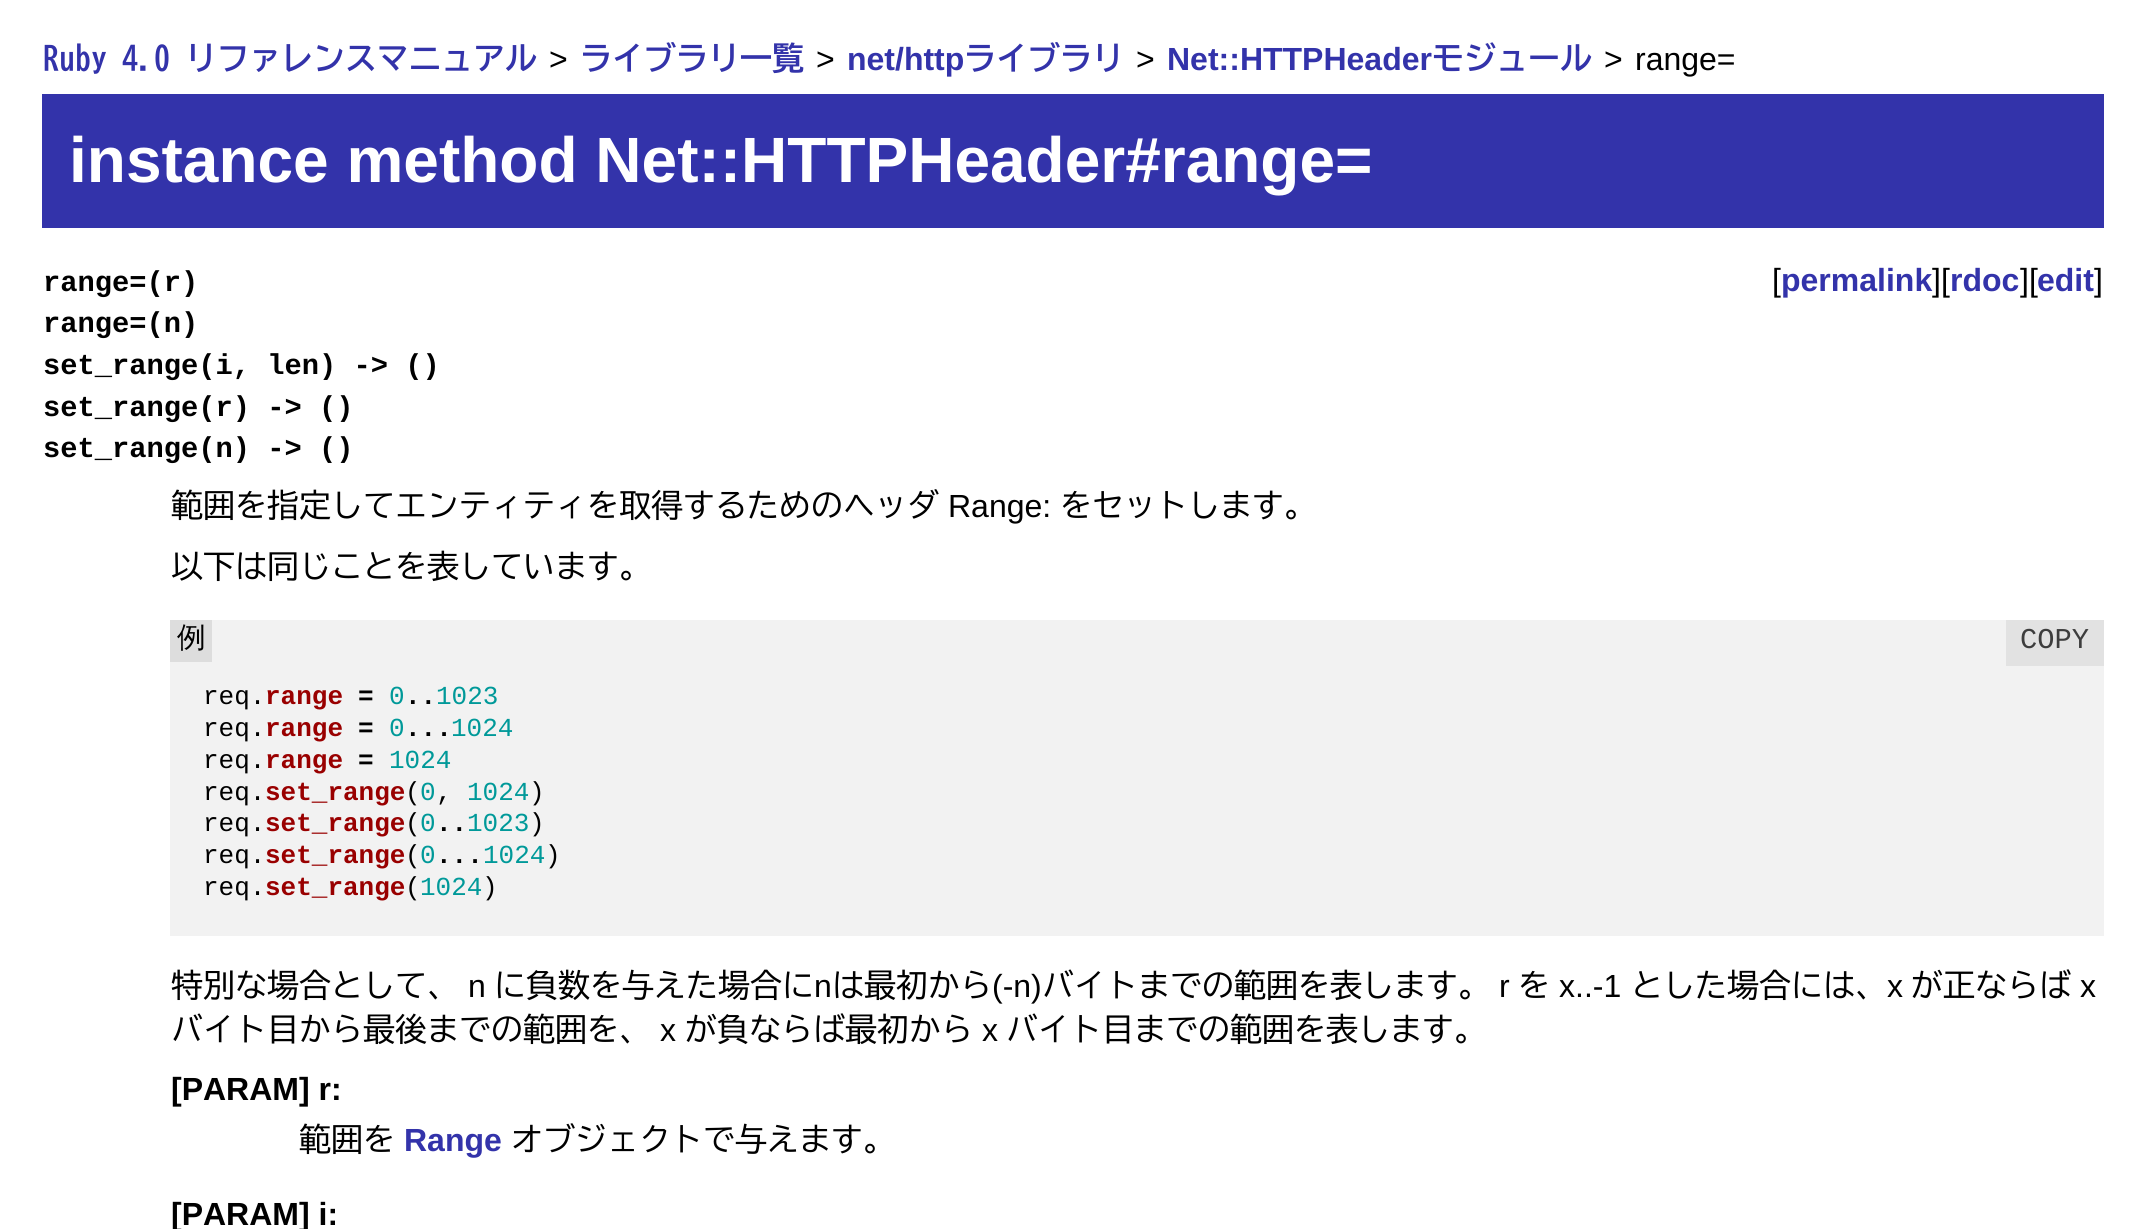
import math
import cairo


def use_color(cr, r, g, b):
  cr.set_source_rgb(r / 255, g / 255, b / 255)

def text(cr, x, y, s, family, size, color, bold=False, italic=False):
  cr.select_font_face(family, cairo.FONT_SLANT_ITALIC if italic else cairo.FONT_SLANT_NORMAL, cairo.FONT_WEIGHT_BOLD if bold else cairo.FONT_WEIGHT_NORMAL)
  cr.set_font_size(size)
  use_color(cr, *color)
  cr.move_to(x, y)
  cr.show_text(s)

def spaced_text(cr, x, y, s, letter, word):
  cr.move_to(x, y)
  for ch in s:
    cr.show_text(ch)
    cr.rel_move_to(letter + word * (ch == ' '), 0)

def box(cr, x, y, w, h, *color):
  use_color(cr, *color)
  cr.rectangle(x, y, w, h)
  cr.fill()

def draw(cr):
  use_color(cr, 255, 255, 255)
  cr.paint()
  box(cr, 42, 94, 2062, 134, 51, 51, 170)
  box(cr, 170, 620, 1934, 316, 242, 242, 242)
  box(cr, 170, 620, 42, 42, 221, 221, 221)
  box(cr, 2006, 620, 98, 46, 226, 226, 226)
  cr.select_font_face("BIZ UDGothic", cairo.FONT_SLANT_NORMAL, cairo.FONT_WEIGHT_BOLD)
  cr.set_font_size(32)
  use_color(cr, 51, 51, 170)
  spaced_text(cr, 43, 70, "Ruby 4.0 リファレンスマニュアル", 0, -1)
  text(cr, 549, 70, ">", "Liberation Sans", 32, (0, 0, 0))
  text(cr, 580, 70, "ライブラリ一覧", "BIZ UDGothic", 32, (51, 51, 170), bold=True)
  text(cr, 816, 70, ">", "Liberation Sans", 32, (0, 0, 0))
  text(cr, 847, 70, "net/http", "Liberation Sans", 32, (51, 51, 170), bold=True)
  text(cr, 964, 70, "ライブラリ", "BIZ UDGothic", 32, (51, 51, 170), bold=True)
  text(cr, 1136, 70, ">", "Liberation Sans", 32, (0, 0, 0))
  text(cr, 1167, 70, "Net::HTTPHeader", "Liberation Sans", 32, (51, 51, 170), bold=True)
  text(cr, 1432, 70, "モジュール", "BIZ UDGothic", 32, (51, 51, 170), bold=True)
  text(cr, 1604, 70, ">", "Liberation Sans", 32, (0, 0, 0))
  text(cr, 1635, 70, "range=", "Liberation Sans", 32, (0, 0, 0))
  text(cr, 69, 182, "instance method Net::HTTPHeader#range=", "Liberation Sans", 64, (255, 255, 255), bold=True)
  text(cr, 43, 291, "range=(r)", "Liberation Mono", 28.75, (0, 0, 0), bold=True)
  text(cr, 1772, 291, "[", "Liberation Sans", 32, (0, 0, 0))
  text(cr, 1781, 291, "permalink", "Liberation Sans", 32, (51, 51, 170), bold=True)
  text(cr, 1932, 291, "][", "Liberation Sans", 32, (0, 0, 0))
  text(cr, 1950, 291, "rdoc", "Liberation Sans", 32, (51, 51, 170), bold=True)
  text(cr, 2020, 291, "][", "Liberation Sans", 32, (0, 0, 0))
  text(cr, 2037, 291, "edit", "Liberation Sans", 32, (51, 51, 170), bold=True)
  text(cr, 2094, 291, "]", "Liberation Sans", 32, (0, 0, 0))
  text(cr, 43, 332, "range=(n)", "Liberation Mono", 28.75, (0, 0, 0), bold=True)
  text(cr, 43, 374, "set_range(i, len) -> ()", "Liberation Mono", 28.75, (0, 0, 0), bold=True)
  text(cr, 43, 416, "set_range(r) -> ()", "Liberation Mono", 28.75, (0, 0, 0), bold=True)
  text(cr, 43, 457, "set_range(n) -> ()", "Liberation Mono", 28.75, (0, 0, 0), bold=True)
  text(cr, 171, 517, "範囲を指定してエンティティを取得するためのヘッダ", "BIZ UDGothic", 32, (0, 0, 0))
  text(cr, 948, 517, "Range:", "Liberation Sans", 32, (0, 0, 0))
  text(cr, 1060, 517, "をセットします。", "BIZ UDGothic", 32, (0, 0, 0))
  text(cr, 171, 578, "以下は同じことを表しています。", "BIZ UDGothic", 32, (0, 0, 0))
  text(cr, 177, 647, "例", "WenQuanYi Zen Hei Medium", 28.75, (0, 0, 0))
  text(cr, 2020, 648, "COPY", "Liberation Mono", 28.75, (61, 61, 61))
  text(cr, 203, 704, "req.", "Liberation Mono", 26, (0, 0, 0))
  text(cr, 265, 704, "range", "Liberation Mono", 26, (153, 0, 0), bold=True)
  text(cr, 358, 704, "=", "Liberation Mono", 26, (0, 0, 0), bold=True)
  text(cr, 389, 704, "0", "Liberation Mono", 26, (0, 153, 153))
  text(cr, 436, 704, "1023", "Liberation Mono", 26, (0, 153, 153))
  text(cr, 405, 704, "..", "Liberation Mono", 26, (0, 0, 0), bold=True)
  text(cr, 203, 736, "req.", "Liberation Mono", 26, (0, 0, 0))
  text(cr, 265, 736, "range", "Liberation Mono", 26, (153, 0, 0), bold=True)
  text(cr, 358, 736, "=", "Liberation Mono", 26, (0, 0, 0), bold=True)
  text(cr, 389, 736, "0", "Liberation Mono", 26, (0, 153, 153))
  text(cr, 451, 736, "1024", "Liberation Mono", 26, (0, 153, 153))
  text(cr, 405, 736, "...", "Liberation Mono", 26, (0, 0, 0), bold=True)
  text(cr, 203, 768, "req.", "Liberation Mono", 26, (0, 0, 0))
  text(cr, 265, 768, "range", "Liberation Mono", 26, (153, 0, 0), bold=True)
  text(cr, 358, 768, "=", "Liberation Mono", 26, (0, 0, 0), bold=True)
  text(cr, 389, 768, "1024", "Liberation Mono", 26, (0, 153, 153))
  text(cr, 265, 800, "set_range", "Liberation Mono", 26, (153, 0, 0), bold=True)
  text(cr, 405, 800, "( ,", "Liberation Mono", 26, (0, 0, 0))
  text(cr, 529, 800, ")", "Liberation Mono", 26, (0, 0, 0))
  text(cr, 203, 800, "req.", "Liberation Mono", 26, (0, 0, 0))
  text(cr, 420, 800, "0", "Liberation Mono", 26, (0, 153, 153))
  text(cr, 467, 800, "1024", "Liberation Mono", 26, (0, 153, 153))
  text(cr, 203, 831, "req.", "Liberation Mono", 26, (0, 0, 0))
  text(cr, 265, 831, "set_range", "Liberation Mono", 26, (153, 0, 0), bold=True)
  text(cr, 405, 831, "(", "Liberation Mono", 26, (0, 0, 0))
  text(cr, 420, 831, "0", "Liberation Mono", 26, (0, 153, 153))
  text(cr, 436, 831, "..", "Liberation Mono", 26, (0, 0, 0), bold=True)
  text(cr, 467, 831, "1023", "Liberation Mono", 26, (0, 153, 153))
  text(cr, 529, 831, ")", "Liberation Mono", 26, (0, 0, 0))
  text(cr, 203, 863, "req.", "Liberation Mono", 26, (0, 0, 0))
  text(cr, 265, 863, "set_range", "Liberation Mono", 26, (153, 0, 0), bold=True)
  text(cr, 405, 863, "(", "Liberation Mono", 26, (0, 0, 0))
  text(cr, 420, 863, "0", "Liberation Mono", 26, (0, 153, 153))
  text(cr, 436, 863, "...", "Liberation Mono", 26, (0, 0, 0), bold=True)
  text(cr, 483, 863, "1024", "Liberation Mono", 26, (0, 153, 153))
  text(cr, 545, 863, ")", "Liberation Mono", 26, (0, 0, 0))
  text(cr, 203, 895, "req.", "Liberation Mono", 26, (0, 0, 0))
  text(cr, 265, 895, "set_range", "Liberation Mono", 26, (153, 0, 0), bold=True)
  text(cr, 405, 895, "(", "Liberation Mono", 26, (0, 0, 0))
  text(cr, 420, 895, "1024", "Liberation Mono", 26, (0, 153, 153))
  text(cr, 482, 895, ")", "Liberation Mono", 26, (0, 0, 0))
  text(cr, 171, 997, "特別な場合として、", "BIZ UDGothic", 32, (0, 0, 0))
  text(cr, 468, 997, "n", "Liberation Sans", 32, (0, 0, 0))
  text(cr, 494, 997, "に負数を与えた場合に", "BIZ UDGothic", 32, (0, 0, 0))
  text(cr, 814, 997, "n", "Liberation Sans", 32, (0, 0, 0))
  text(cr, 832, 997, "は最初から", "BIZ UDGothic", 32, (0, 0, 0))
  text(cr, 992, 997, "(-n)", "Liberation Sans", 32, (0, 0, 0))
  text(cr, 1042, 997, "バイトまでの範囲を表します。", "BIZ UDGothic", 32, (0, 0, 0))
  text(cr, 1499, 997, "r", "Liberation Sans", 32, (0, 0, 0))
  text(cr, 1518, 997, "を", "BIZ UDGothic", 32, (0, 0, 0))
  text(cr, 1559, 997, "x..-1", "Liberation Sans", 32, (0, 0, 0))
  text(cr, 1631, 997, "とした場合には、", "BIZ UDGothic", 32, (0, 0, 0))
  text(cr, 1887, 997, "x", "Liberation Sans", 32, (0, 0, 0))
  text(cr, 1911, 997, "が正ならば", "BIZ UDGothic", 32, (0, 0, 0))
  text(cr, 2080, 997, "x", "Liberation Sans", 32, (0, 0, 0))
  text(cr, 171, 1041, "バイト目から最後までの範囲を、", "BIZ UDGothic", 32, (0, 0, 0))
  text(cr, 660, 1041, "x", "Liberation Sans", 32, (0, 0, 0))
  text(cr, 685, 1041, "が負ならば最初から", "BIZ UDGothic", 32, (0, 0, 0))
  text(cr, 982, 1041, "x", "Liberation Sans", 32, (0, 0, 0))
  text(cr, 1006, 1041, "バイト目までの範囲を表します。", "BIZ UDGothic", 32, (0, 0, 0))
  text(cr, 171, 1100, "[PARAM] r:", "Liberation Sans", 32, (0, 0, 0), bold=True)
  text(cr, 299, 1151, "範囲を", "BIZ UDGothic", 32, (0, 0, 0))
  text(cr, 404, 1151, "Range", "Liberation Sans", 32, (51, 51, 170), bold=True)
  text(cr, 511, 1151, "オブジェクトで与えます。", "BIZ UDGothic", 32, (0, 0, 0))
  text(cr, 171, 1225, "[PARAM] i:", "Liberation Sans", 32, (0, 0, 0), bold=True)


surface = cairo.ImageSurface(cairo.FORMAT_RGB24, 2146, 1229)
cr = cairo.Context(surface)
options = cairo.FontOptions()
options.set_hint_metrics(cairo.HINT_METRICS_OFF)
options.set_hint_style(cairo.HINT_STYLE_NONE)
cr.set_font_options(options)
cr.set_miter_limit(4)
draw(cr)
surface.write_to_png("out.png")
